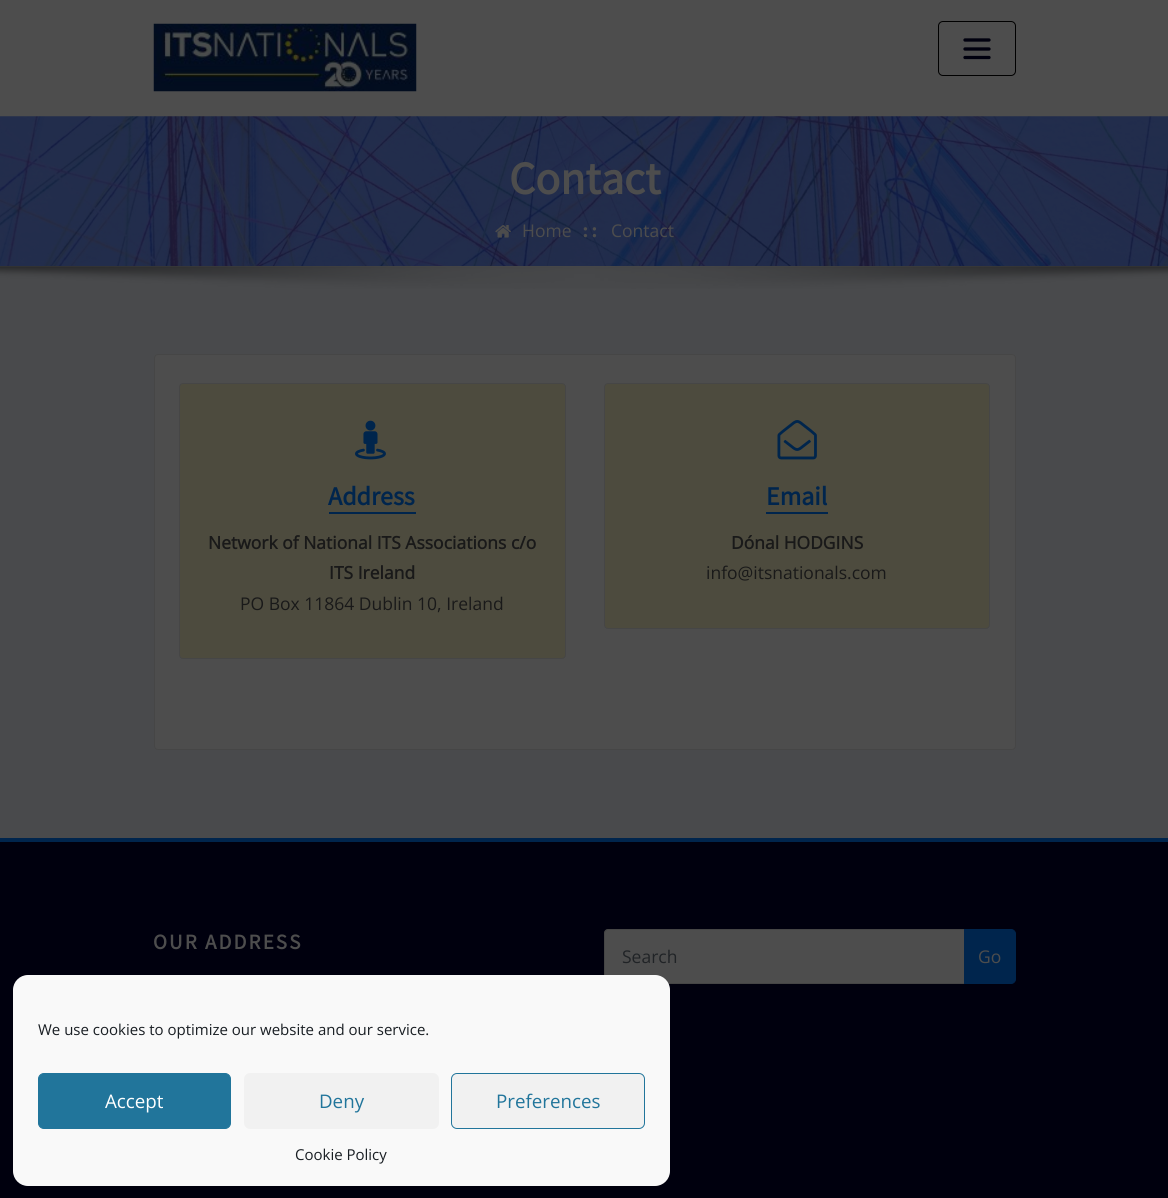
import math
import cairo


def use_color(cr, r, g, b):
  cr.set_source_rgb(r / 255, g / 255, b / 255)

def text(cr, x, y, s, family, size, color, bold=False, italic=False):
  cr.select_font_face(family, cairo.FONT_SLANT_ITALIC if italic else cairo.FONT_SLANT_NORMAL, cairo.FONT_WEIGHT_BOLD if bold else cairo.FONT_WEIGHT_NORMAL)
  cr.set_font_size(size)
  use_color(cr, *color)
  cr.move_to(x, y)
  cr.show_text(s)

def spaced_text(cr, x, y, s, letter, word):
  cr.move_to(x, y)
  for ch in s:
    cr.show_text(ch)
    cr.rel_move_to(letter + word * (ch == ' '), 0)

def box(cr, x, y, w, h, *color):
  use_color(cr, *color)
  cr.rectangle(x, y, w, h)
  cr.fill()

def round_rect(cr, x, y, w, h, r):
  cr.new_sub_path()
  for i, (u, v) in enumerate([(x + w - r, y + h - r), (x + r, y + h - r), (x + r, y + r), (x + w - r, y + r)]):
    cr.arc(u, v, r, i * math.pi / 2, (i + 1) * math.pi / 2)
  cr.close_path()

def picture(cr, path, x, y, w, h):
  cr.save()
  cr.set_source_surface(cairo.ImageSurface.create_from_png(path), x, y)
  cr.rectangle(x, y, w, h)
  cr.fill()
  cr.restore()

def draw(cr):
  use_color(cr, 77, 77, 77)
  cr.paint()
  picture(cr, "img_01.png", 153, 23, 264, 69)
  round_rect(cr, 938.5, 21.5, 77, 54, 4.5)
  use_color(cr, 0, 0, 0)
  cr.set_line_width(1)
  cr.stroke()
  cr.new_path()
  cr.move_to(965, 40)
  cr.line_to(989, 40)
  cr.move_to(965, 49)
  cr.line_to(989, 49)
  cr.move_to(965, 57.5)
  cr.line_to(989, 57.5)
  use_color(cr, 0, 0, 14)
  cr.set_line_width(3.3)
  cr.set_line_cap(cairo.LINE_CAP_ROUND)
  cr.stroke()
  picture(cr, "img_02.png", 0, 116, 1168, 150)
  picture(cr, "img_03.png", 495, 225, 16, 13)
  box(cr, 0, 266, 1168, 572, 73, 74, 76)
  picture(cr, "img_04.png", 0, 266, 1168, 23)
  use_color(cr, 77, 77, 77)
  round_rect(cr, 154.5, 354.5, 861, 395, 3.5)
  cr.fill_preserve()
  use_color(cr, 70, 70, 70)
  cr.set_line_width(1)
  cr.set_line_cap(cairo.LINE_CAP_BUTT)
  cr.stroke()
  use_color(cr, 77, 75, 62)
  round_rect(cr, 179.5, 383.5, 386, 275, 3.5)
  cr.fill_preserve()
  use_color(cr, 70, 70, 70)
  cr.stroke()
  picture(cr, "img_05.png", 355, 420, 31, 40)
  box(cr, 329, 512, 87, 2, 0, 37, 77)
  use_color(cr, 77, 75, 62)
  round_rect(cr, 604.5, 383.5, 385, 245, 3.5)
  cr.fill_preserve()
  use_color(cr, 70, 70, 70)
  cr.stroke()
  picture(cr, "img_06.png", 777, 420, 40, 40)
  use_color(cr, 0, 37, 77)
  cr.new_path()
  cr.move_to(766, 480)
  cr.line_to(766, 514)
  cr.line_to(828, 514)
  cr.line_to(828, 480)
  cr.line_to(828, 512)
  cr.line_to(766, 512)
  cr.close_path()
  cr.fill()
  box(cr, 0, 842, 1168, 356, 0, 0, 14)
  box(cr, 0, 838, 1168, 4, 0, 37, 77)
  use_color(cr, 77, 77, 77)
  cr.new_path()
  cr.move_to(608, 929.5)
  cr.line_to(964.5, 929.5)
  cr.line_to(964.5, 983.5)
  cr.line_to(608, 983.5)
  cr.curve_to(606, 983.5, 604.5, 982, 604.5, 980)
  cr.line_to(604.5, 933)
  cr.curve_to(604.5, 931, 606, 929.5, 608, 929.5)
  cr.close_path()
  cr.fill_preserve()
  use_color(cr, 69, 69, 69)
  cr.stroke()
  use_color(cr, 0, 37, 77)
  cr.new_path()
  cr.move_to(964.5, 929.5)
  cr.line_to(1011, 929.5)
  cr.curve_to(1013.5, 929.5, 1015.5, 931.5, 1015.5, 934)
  cr.line_to(1015.5, 979)
  cr.curve_to(1015.5, 981.5, 1013.5, 983.5, 1011, 983.5)
  cr.line_to(964.5, 983.5)
  cr.close_path()
  cr.fill_preserve()
  cr.stroke()
  use_color(cr, 249, 249, 249)
  round_rect(cr, 13, 975, 657, 211, 15)
  cr.fill()
  use_color(cr, 33, 117, 155)
  round_rect(cr, 38.5, 1073.5, 192, 55, 5.5)
  cr.fill_preserve()
  cr.stroke()
  use_color(cr, 241, 241, 241)
  round_rect(cr, 244, 1073, 195, 56, 6)
  cr.fill()
  round_rect(cr, 451.5, 1073.5, 193, 55, 5.5)
  cr.fill_preserve()
  use_color(cr, 33, 117, 155)
  cr.stroke()
  text(cr, 509, 194, "Contact", "Source Sans Pro", 46, (77, 77, 77), bold=True)
  text(cr, 522, 237, "Home", "Open Sans", 17.5, (77, 77, 77))
  cr.select_font_face("Liberation Serif", cairo.FONT_SLANT_NORMAL, cairo.FONT_WEIGHT_BOLD)
  cr.set_font_size(21)
  spaced_text(cr, 582, 237, "::", 2, 0)
  text(cr, 611, 237, "Contact", "Open Sans", 17.5, (77, 77, 77))
  text(cr, 328, 505, "Address", "Source Sans Pro", 26, (0, 37, 77), bold=True)
  text(cr, 208, 549, "Network of National ITS Associations c/o", "Open Sans", 17.5, (25, 25, 25), bold=True)
  text(cr, 329, 579, "ITS Ireland", "Open Sans", 17.5, (25, 25, 25), bold=True)
  text(cr, 240, 610, "PO Box 11864 Dublin 10, Ireland", "Open Sans", 17.5, (25, 25, 25))
  text(cr, 766, 505, "Email", "Source Sans Pro", 26, (0, 37, 77), bold=True)
  text(cr, 731, 549, "Dónal HODGINS", "Open Sans", 17.5, (25, 25, 25), bold=True)
  text(cr, 706, 579, "info@itsnationals.com", "Open Sans", 17.5, (25, 25, 25))
  cr.select_font_face("Source Sans Pro", cairo.FONT_SLANT_NORMAL, cairo.FONT_WEIGHT_BOLD)
  cr.set_font_size(21)
  use_color(cr, 77, 77, 77)
  spaced_text(cr, 153, 949, "OUR ADDRESS", 2.1, 0)
  text(cr, 622, 963, "Search", "Open Sans", 17.5, (32, 35, 38))
  text(cr, 978, 963, "Go", "Open Sans", 17.5, (77, 77, 77))
  text(cr, 38, 1035, "We use cookies to optimize our website and our service.", "Open Sans", 15, (25, 30, 35))
  text(cr, 105, 1108, "Accept", "Open Sans", 18.75, (255, 255, 255))
  text(cr, 319, 1108, "Deny", "Open Sans", 18.75, (33, 117, 155))
  text(cr, 496, 1108, "Preferences", "Open Sans", 18.75, (33, 117, 155))
  text(cr, 295, 1160, "Cookie Policy", "Open Sans", 15, (25, 30, 35))


surface = cairo.ImageSurface(cairo.FORMAT_RGB24, 1168, 1198)
cr = cairo.Context(surface)
options = cairo.FontOptions()
options.set_hint_metrics(cairo.HINT_METRICS_OFF)
options.set_hint_style(cairo.HINT_STYLE_NONE)
cr.set_font_options(options)
cr.set_miter_limit(4)
draw(cr)
surface.write_to_png("out.png")
